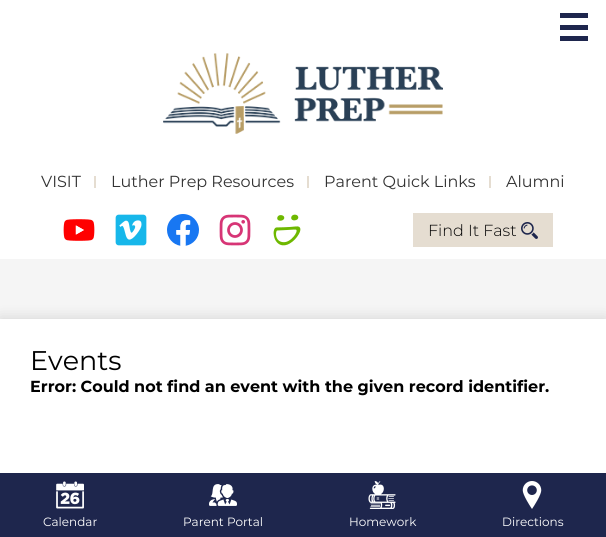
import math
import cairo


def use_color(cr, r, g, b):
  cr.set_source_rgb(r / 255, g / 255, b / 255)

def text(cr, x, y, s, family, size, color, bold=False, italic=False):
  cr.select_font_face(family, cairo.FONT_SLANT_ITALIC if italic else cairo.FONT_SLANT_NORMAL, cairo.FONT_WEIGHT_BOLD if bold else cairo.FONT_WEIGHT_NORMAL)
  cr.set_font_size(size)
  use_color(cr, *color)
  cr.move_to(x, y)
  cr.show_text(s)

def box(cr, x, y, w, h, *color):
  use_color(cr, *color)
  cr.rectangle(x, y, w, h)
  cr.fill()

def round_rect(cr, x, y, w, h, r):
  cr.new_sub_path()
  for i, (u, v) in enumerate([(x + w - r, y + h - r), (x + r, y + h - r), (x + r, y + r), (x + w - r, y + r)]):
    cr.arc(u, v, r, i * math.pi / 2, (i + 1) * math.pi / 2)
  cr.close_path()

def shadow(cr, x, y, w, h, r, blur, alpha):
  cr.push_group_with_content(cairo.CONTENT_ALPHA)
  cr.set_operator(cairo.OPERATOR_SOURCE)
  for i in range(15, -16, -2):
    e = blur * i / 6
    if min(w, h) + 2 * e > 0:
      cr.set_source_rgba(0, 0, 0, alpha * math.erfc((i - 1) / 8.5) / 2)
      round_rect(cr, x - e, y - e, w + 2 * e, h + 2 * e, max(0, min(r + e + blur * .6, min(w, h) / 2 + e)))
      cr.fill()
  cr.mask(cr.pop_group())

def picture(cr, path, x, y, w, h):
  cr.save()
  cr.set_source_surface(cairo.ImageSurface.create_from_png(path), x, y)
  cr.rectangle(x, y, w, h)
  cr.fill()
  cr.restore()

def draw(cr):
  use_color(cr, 245, 245, 245)
  cr.paint()
  box(cr, 0, 0, 606, 259, 255, 255, 255)
  box(cr, 560, 13, 28, 5, 30, 38, 77)
  box(cr, 560, 25, 28, 5, 30, 38, 77)
  box(cr, 560, 36, 28, 5, 30, 38, 77)
  picture(cr, "img_01.png", 163, 53, 280, 81)
  box(cr, 94, 176, 2, 12, 229, 221, 209)
  box(cr, 307, 176, 2, 12, 229, 221, 209)
  box(cr, 489, 176, 2, 12, 229, 221, 209)
  picture(cr, "img_02.png", 63, 219, 32, 22)
  picture(cr, "img_03.png", 115, 214, 32, 32)
  picture(cr, "img_04.png", 167, 214, 32, 32)
  picture(cr, "img_05.png", 219, 214, 32, 32)
  picture(cr, "img_06.png", 273, 214, 28, 32)
  box(cr, 413, 213, 140, 34, 229, 221, 209)
  picture(cr, "img_07.png", 521, 222, 17, 17)
  use_color(cr, 0, 0, 0)
  shadow(cr, 0, 319, 606, 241, 0, 7.5, 0.15)
  box(cr, 0, 319, 606, 154, 255, 255, 255)
  box(cr, 0, 473, 606, 64, 30, 38, 77)
  picture(cr, "img_08.png", 56, 481, 28, 28)
  picture(cr, "img_09.png", 209, 484, 28, 22)
  picture(cr, "img_10.png", 368, 481, 28, 28)
  picture(cr, "img_11.png", 522, 481, 20, 28)
  text(cr, 41, 187, "VISIT", "Montserrat", 16, (51, 51, 51))
  text(cr, 111, 187, "Luther Prep Resources", "Montserrat", 16, (51, 51, 51))
  text(cr, 324, 187, "Parent Quick Links", "Montserrat", 16, (51, 51, 51))
  text(cr, 506, 187, "Alumni", "Montserrat", 16, (51, 51, 51))
  text(cr, 428, 236, "Find It Fast", "Montserrat Light", 16, (0, 0, 0))
  text(cr, 30, 370, "Events", "Montserrat", 27, (0, 0, 0))
  text(cr, 30, 392, "Error: Could not find an event with the given record identifier.", "Montserrat", 16, (0, 0, 0), bold=True)
  text(cr, 43, 526, "Calendar", "Montserrat", 12, (255, 255, 255))
  text(cr, 183, 526, "Parent Portal", "Montserrat", 12, (255, 255, 255))
  text(cr, 349, 526, "Homework", "Montserrat", 12, (255, 255, 255))
  text(cr, 502, 526, "Directions", "Montserrat", 12, (255, 255, 255))


surface = cairo.ImageSurface(cairo.FORMAT_RGB24, 606, 537)
cr = cairo.Context(surface)
options = cairo.FontOptions()
options.set_hint_metrics(cairo.HINT_METRICS_OFF)
options.set_hint_style(cairo.HINT_STYLE_NONE)
cr.set_font_options(options)
cr.set_miter_limit(4)
draw(cr)
surface.write_to_png("out.png")
